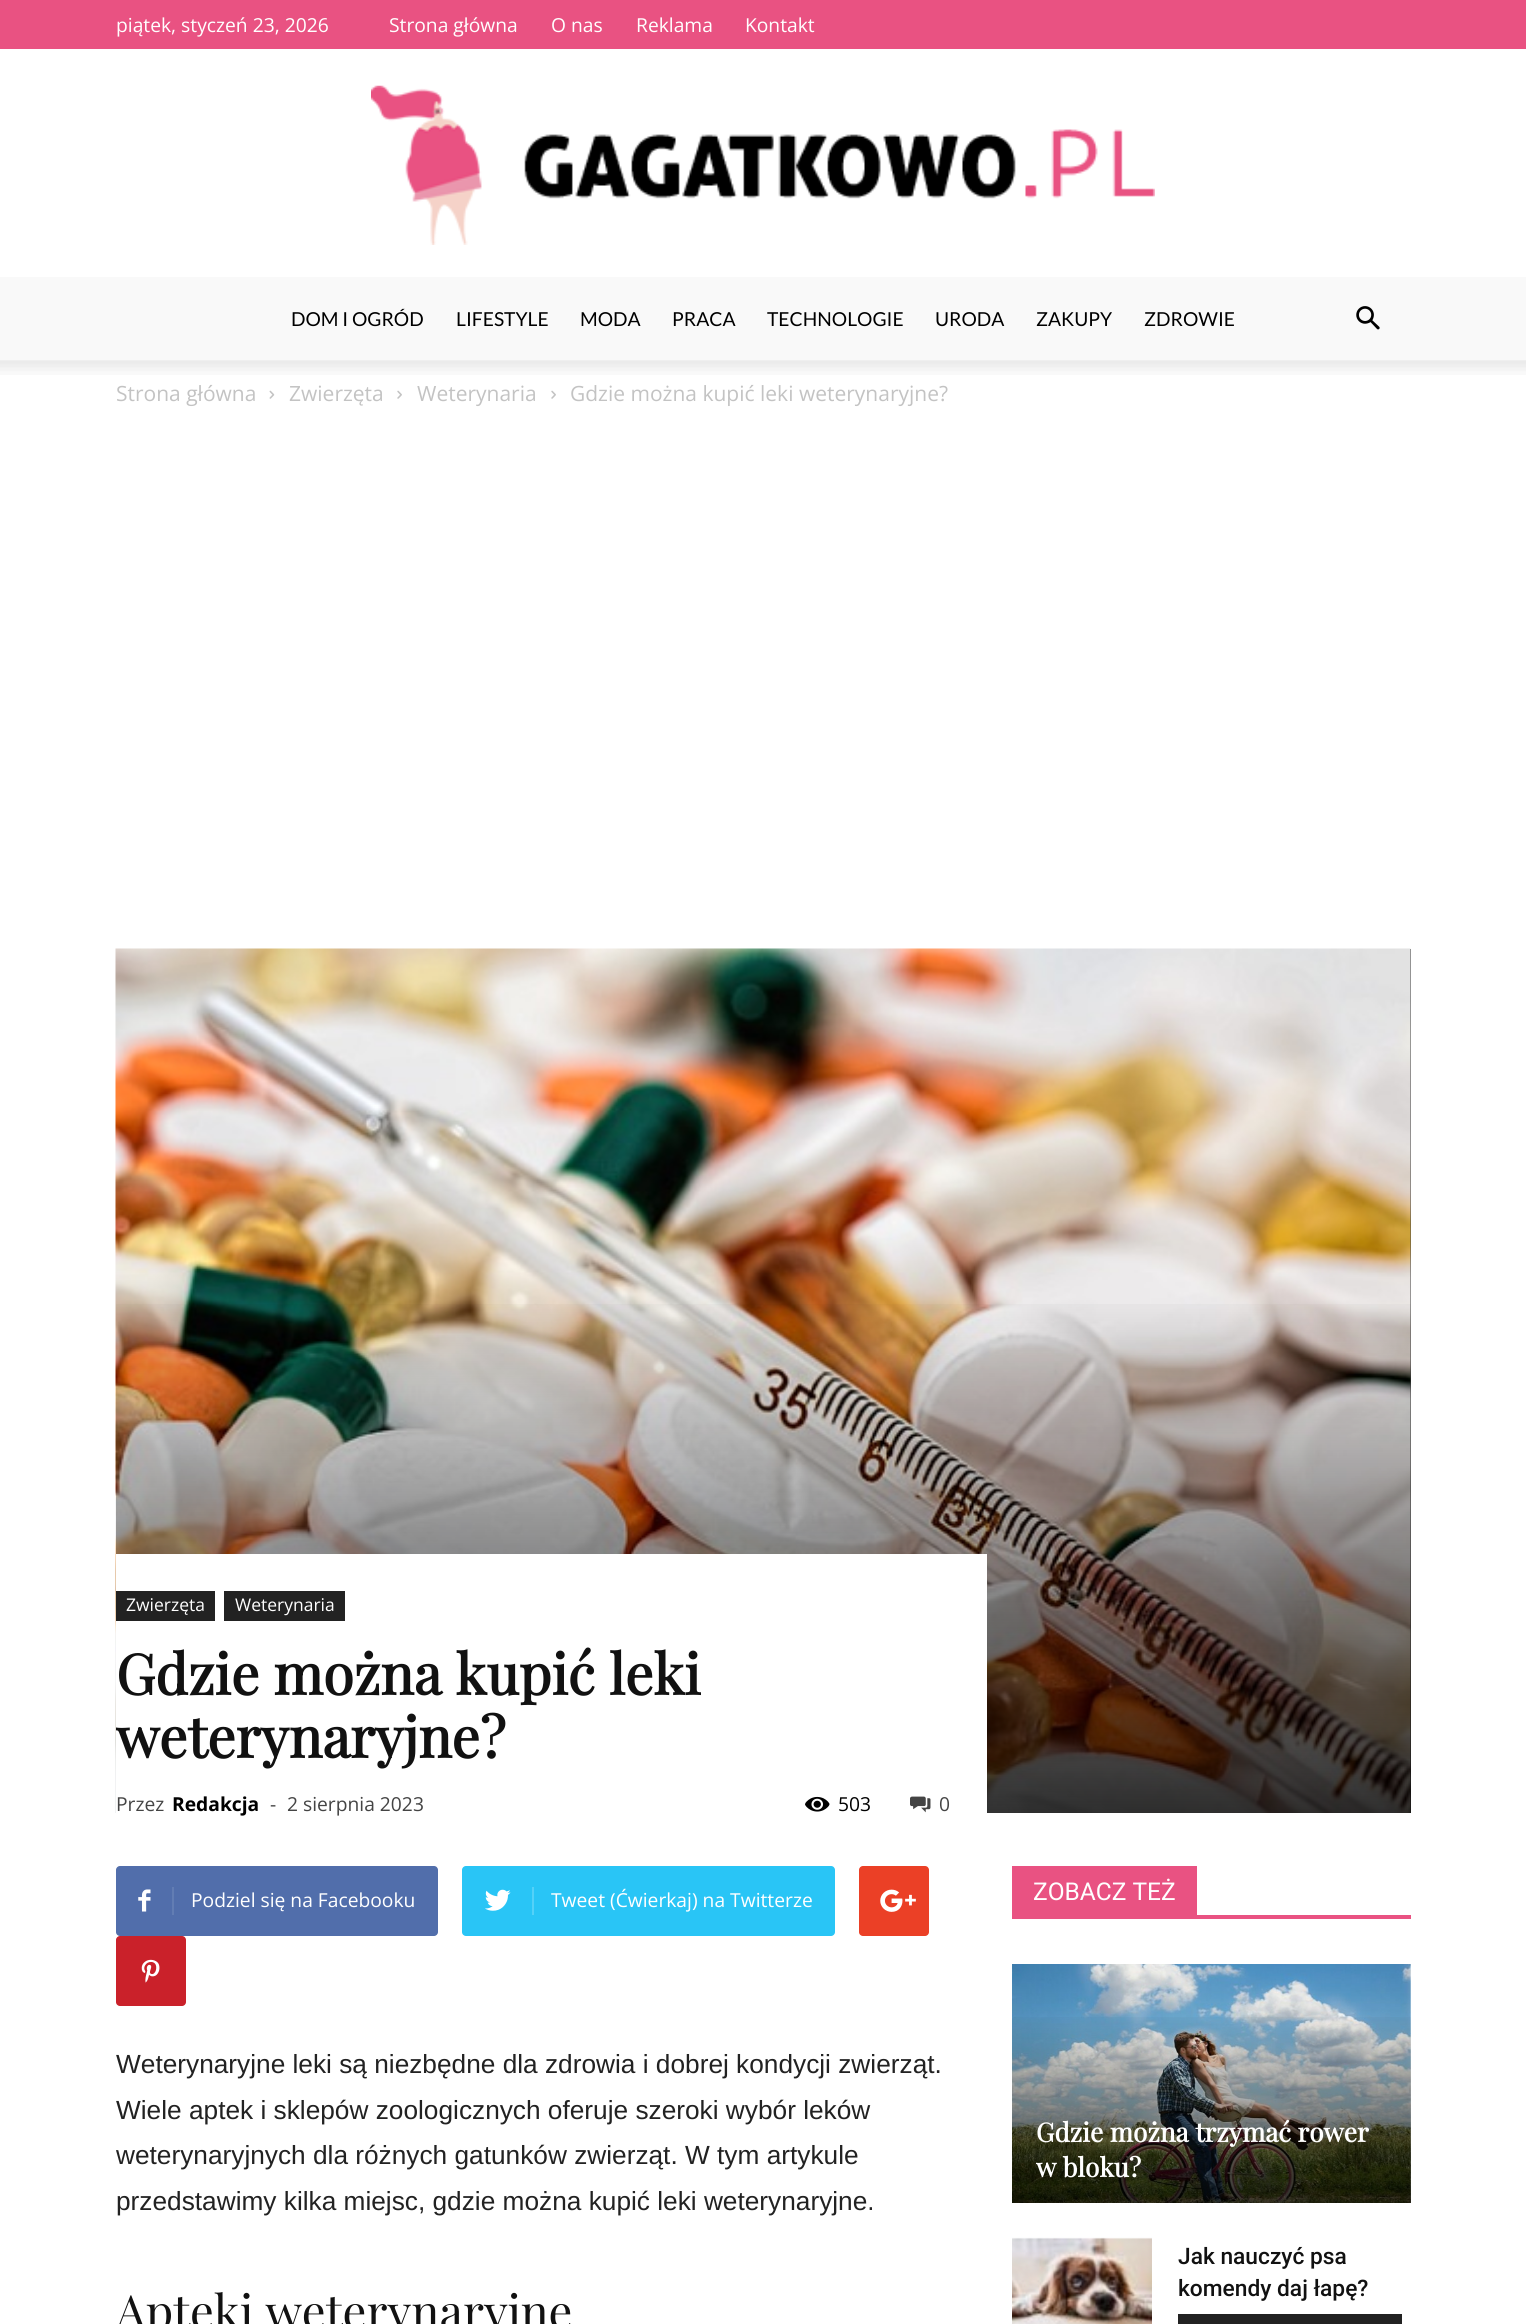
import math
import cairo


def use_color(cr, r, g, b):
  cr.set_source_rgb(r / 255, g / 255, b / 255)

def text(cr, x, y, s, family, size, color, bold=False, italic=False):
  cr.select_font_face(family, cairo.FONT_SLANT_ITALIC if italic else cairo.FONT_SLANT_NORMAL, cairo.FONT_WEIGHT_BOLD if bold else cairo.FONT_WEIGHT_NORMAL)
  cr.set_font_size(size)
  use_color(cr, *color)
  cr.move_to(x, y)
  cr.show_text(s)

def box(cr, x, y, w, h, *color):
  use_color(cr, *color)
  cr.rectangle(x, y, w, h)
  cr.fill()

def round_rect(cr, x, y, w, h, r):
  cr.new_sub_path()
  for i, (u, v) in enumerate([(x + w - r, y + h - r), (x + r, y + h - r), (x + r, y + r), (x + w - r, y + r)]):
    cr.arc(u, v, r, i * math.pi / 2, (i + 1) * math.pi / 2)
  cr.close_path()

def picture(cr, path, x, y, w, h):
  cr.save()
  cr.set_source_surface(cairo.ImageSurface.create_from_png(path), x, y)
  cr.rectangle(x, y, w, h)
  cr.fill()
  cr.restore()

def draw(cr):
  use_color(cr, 255, 255, 255)
  cr.paint()
  box(cr, 0, 0, 1526, 49, 233, 82, 130)
  picture(cr, "img_01.png", 371, 85, 784, 160)
  box(cr, 0, 277, 1526, 84, 249, 249, 249)
  picture(cr, "img_02.png", 1356, 306, 24, 24)
  picture(cr, "img_03.png", 0, 360, 1526, 15)
  picture(cr, "img_04.png", 269, 390, 6, 9)
  picture(cr, "img_05.png", 397, 390, 5, 9)
  picture(cr, "img_05.png", 551, 390, 5, 9)
  box(cr, 1410, 949, 1, 864, 68, 68, 68)
  picture(cr, "img_06.png", 115, 948, 1296, 865)
  gradient = cairo.LinearGradient(763, 1290, 763, 1813)
  gradient.add_color_stop_rgba(0, 0, 0, 0, 0)
  gradient.add_color_stop_rgba(1, 0, 0, 0, 0.8)
  cr.set_source(gradient)
  cr.rectangle(116, 1304, 1295, 509)
  cr.fill()
  box(cr, 116, 1554, 871, 259, 255, 255, 255)
  box(cr, 116, 1591, 99, 30, 34, 34, 34)
  box(cr, 224, 1591, 121, 30, 34, 34, 34)
  picture(cr, "img_07.png", 805, 1796, 25, 16)
  picture(cr, "img_08.png", 910, 1796, 21, 17)
  use_color(cr, 81, 110, 171)
  round_rect(cr, 116, 1866, 322, 70, 4)
  cr.fill()
  picture(cr, "img_09.png", 138, 1889, 13, 23)
  box(cr, 172, 1887, 2, 28, 98, 125, 179)
  use_color(cr, 41, 197, 246)
  round_rect(cr, 462, 1866, 373, 70, 4)
  cr.fill()
  picture(cr, "img_10.png", 485, 1889, 26, 22)
  box(cr, 532, 1887, 2, 28, 84, 209, 248)
  use_color(cr, 235, 64, 38)
  round_rect(cr, 859, 1866, 70, 70, 4)
  cr.fill()
  picture(cr, "img_11.png", 880, 1889, 36, 23)
  use_color(cr, 202, 33, 42)
  round_rect(cr, 116, 1936, 70, 70, 4)
  cr.fill()
  picture(cr, "img_12.png", 141, 1959, 19, 24)
  box(cr, 1012, 1915, 399, 4, 233, 82, 130)
  box(cr, 1012, 1866, 185, 49, 233, 82, 130)
  picture(cr, "img_13.png", 1012, 1964, 399, 239)
  gradient = cairo.LinearGradient(1211, 2011, 1211, 2203)
  gradient.add_color_stop_rgba(0, 0, 0, 0, 0)
  gradient.add_color_stop_rgba(1, 0, 0, 0, 0.7)
  cr.set_source(gradient)
  cr.rectangle(1012, 2017, 399, 186)
  cr.fill()
  picture(cr, "img_14.png", 1012, 2237, 140, 87)
  box(cr, 1178, 2314, 224, 10, 34, 34, 34)
  text(cr, 116, 32, "piątek, styczeń 23, 2026", "Open Sans", 19.25, (255, 255, 255))
  text(cr, 389, 32, "Strona główna", "Open Sans", 19.25, (255, 255, 255))
  text(cr, 551, 32, "O nas", "Open Sans", 19.25, (255, 255, 255))
  text(cr, 636, 32, "Reklama", "Open Sans", 19.25, (255, 255, 255))
  text(cr, 745, 32, "Kontakt", "Open Sans", 19.25, (255, 255, 255))
  text(cr, 291, 326, "DOM I OGRÓD", "Lato", 19.25, (0, 0, 0))
  text(cr, 456, 326, "LIFESTYLE", "Lato", 19.25, (0, 0, 0))
  text(cr, 580, 326, "MODA", "Lato", 19.25, (0, 0, 0))
  text(cr, 672, 326, "PRACA", "Lato", 19.25, (0, 0, 0))
  text(cr, 767, 326, "TECHNOLOGIE", "Lato", 19.25, (0, 0, 0))
  text(cr, 935, 326, "URODA", "Lato", 19.25, (0, 0, 0))
  text(cr, 1036, 326, "ZAKUPY", "Lato", 19.25, (0, 0, 0))
  text(cr, 1144, 326, "ZDROWIE", "Lato", 19.25, (0, 0, 0))
  text(cr, 116, 401, "Strona główna", "Open Sans", 21, (195, 195, 195))
  text(cr, 289, 401, "Zwierzęta", "Open Sans", 21, (195, 195, 195))
  text(cr, 417, 401, "Weterynaria", "Open Sans", 21, (195, 195, 195))
  text(cr, 570, 401, "Gdzie można kupić leki weterynaryjne?", "Open Sans", 21, (195, 195, 195))
  text(cr, 126, 1611, "Zwierzęta", "Open Sans", 17.5, (255, 255, 255))
  text(cr, 235, 1611, "Weterynaria", "Open Sans", 17.5, (255, 255, 255))
  text(cr, 116, 1695, "Gdzie można kupić leki", "Playfair Display", 56, (17, 17, 17), bold=True)
  text(cr, 116, 1758, "weterynaryjne?", "Playfair Display", 56, (17, 17, 17), bold=True)
  text(cr, 116, 1811, "Przez", "Open Sans", 19.25, (68, 68, 68))
  text(cr, 172, 1811, "Redakcja", "Open Sans", 19.25, (0, 0, 0), bold=True)
  text(cr, 270, 1811, "-", "Open Sans", 19.25, (68, 68, 68))
  text(cr, 287, 1811, "2 sierpnia 2023", "Open Sans", 19.25, (68, 68, 68))
  text(cr, 838, 1811, "503", "Open Sans", 19.25, (0, 0, 0))
  text(cr, 939, 1811, "0", "Open Sans", 19.25, (68, 68, 68))
  text(cr, 191, 1907, "Podziel się na Facebooku", "Open Sans", 19.25, (255, 255, 255))
  text(cr, 551, 1907, "Tweet (Ćwierkaj) na Twitterze", "Open Sans", 19.25, (255, 255, 255))
  text(cr, 116, 2073, "Weterynaryjne leki są niezbędne dla zdrowia i dobrej kondycji zwierząt.", "Liberation Sans", 26.25, (34, 34, 34))
  text(cr, 116, 2119, "Wiele aptek i sklepów zoologicznych oferuje szeroki wybór leków", "Liberation Sans", 26.25, (34, 34, 34))
  text(cr, 116, 2164, "weterynaryjnych dla różnych gatunków zwierząt. W tym artykule", "Liberation Sans", 26.25, (34, 34, 34))
  text(cr, 116, 2210, "przedstawimy kilka miejsc, gdzie można kupić leki weterynaryjne.", "Liberation Sans", 26.25, (34, 34, 34))
  text(cr, 116, 2329, "Apteki weterynaryjne", "Playfair Display", 47.25, (17, 17, 17))
  text(cr, 1033, 1900, "ZOBACZ TEŻ", "Roboto", 24.5, (255, 255, 255))
  text(cr, 1036, 2142, "Gdzie można trzymać rower", "Playfair Display", 26.25, (255, 255, 255), bold=True)
  text(cr, 1036, 2177, "w bloku?", "Playfair Display", 26.25, (255, 255, 255), bold=True)
  text(cr, 1178, 2264, "Jak nauczyć psa", "Roboto Medium", 22.75, (17, 17, 17))
  text(cr, 1178, 2296, "komendy daj łapę?", "Roboto Medium", 22.75, (17, 17, 17))


surface = cairo.ImageSurface(cairo.FORMAT_RGB24, 1526, 2324)
cr = cairo.Context(surface)
options = cairo.FontOptions()
options.set_hint_metrics(cairo.HINT_METRICS_OFF)
options.set_hint_style(cairo.HINT_STYLE_NONE)
cr.set_font_options(options)
cr.set_miter_limit(4)
draw(cr)
surface.write_to_png("out.png")
